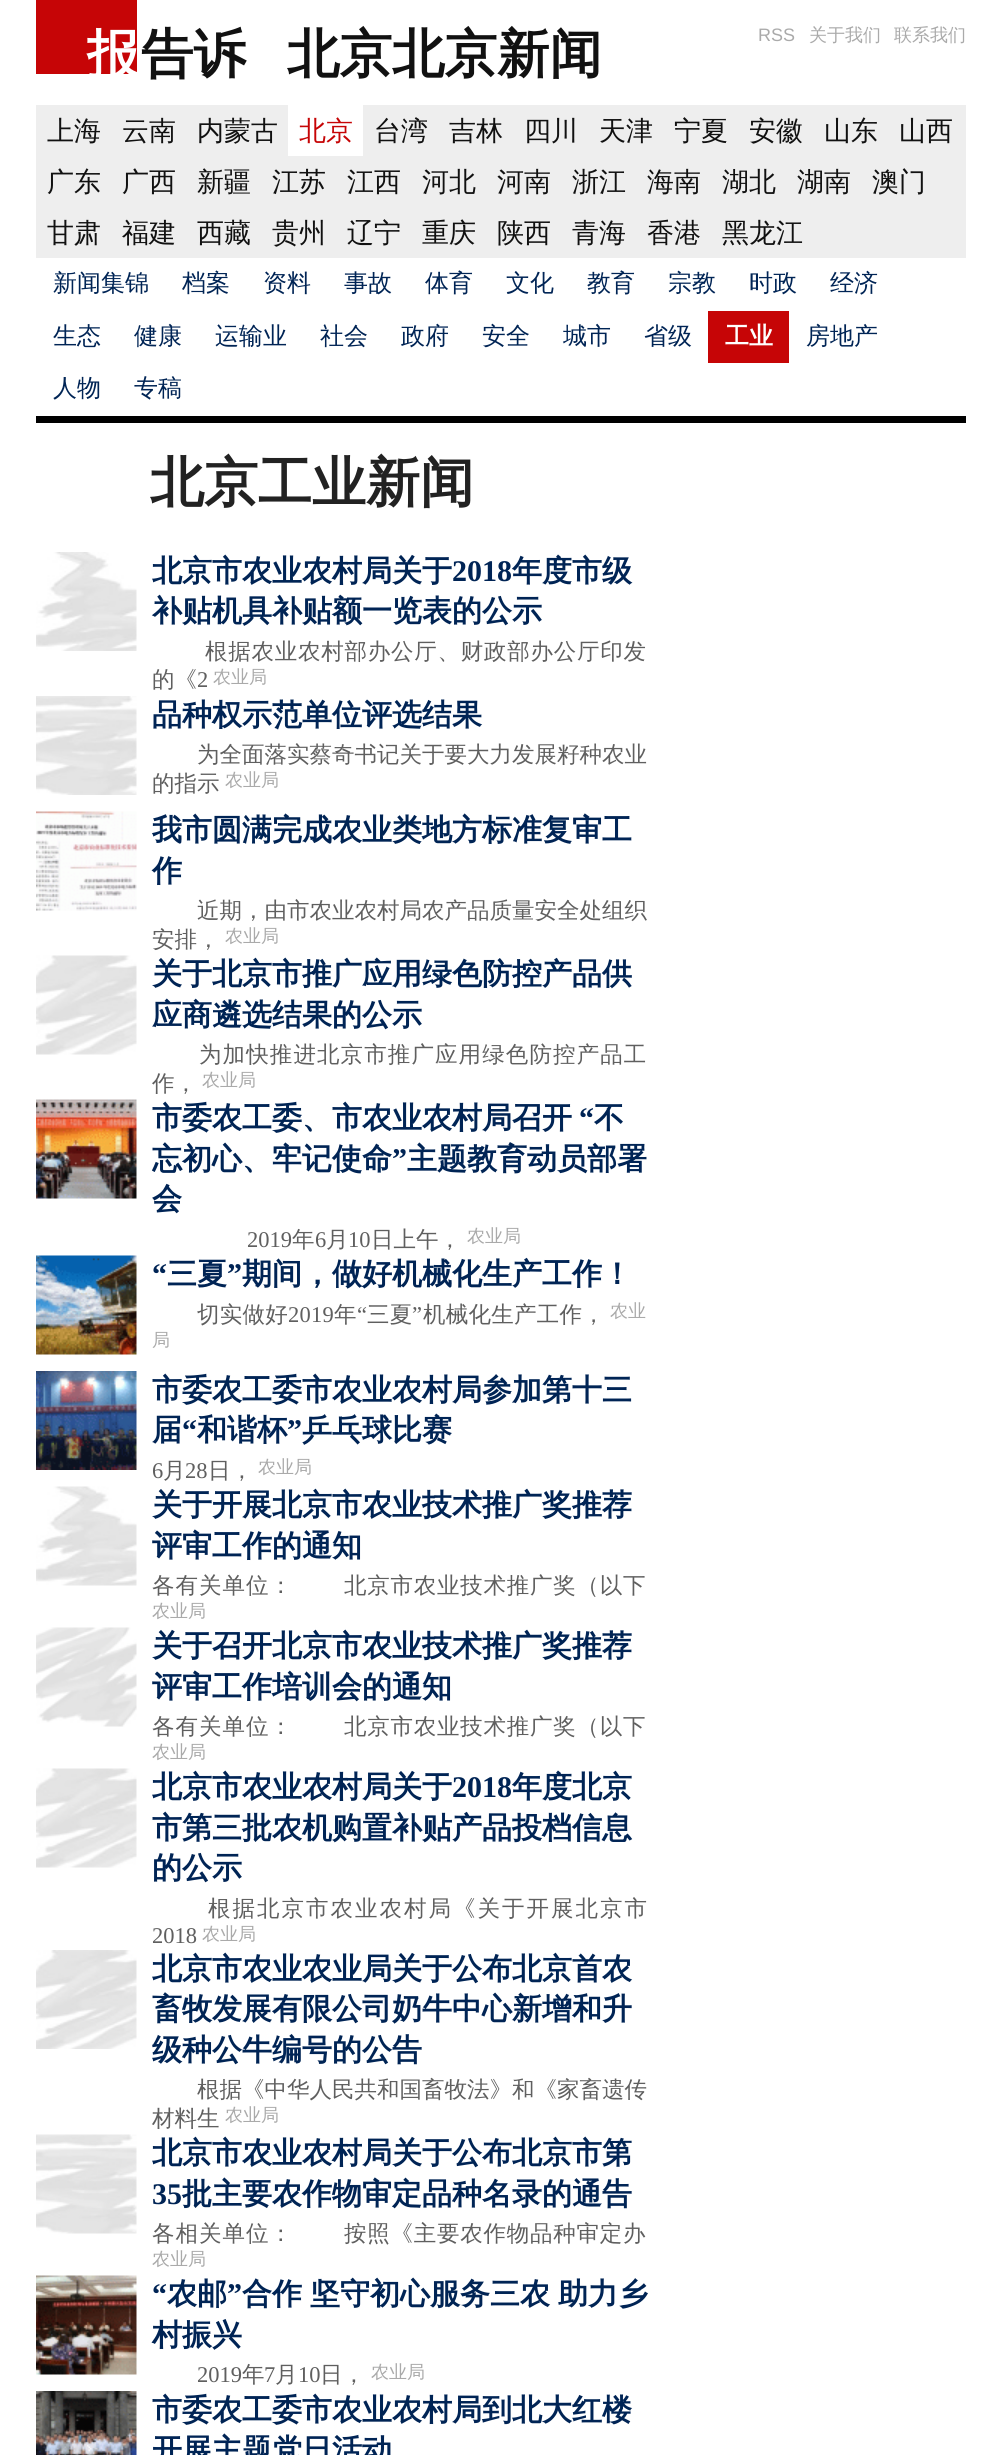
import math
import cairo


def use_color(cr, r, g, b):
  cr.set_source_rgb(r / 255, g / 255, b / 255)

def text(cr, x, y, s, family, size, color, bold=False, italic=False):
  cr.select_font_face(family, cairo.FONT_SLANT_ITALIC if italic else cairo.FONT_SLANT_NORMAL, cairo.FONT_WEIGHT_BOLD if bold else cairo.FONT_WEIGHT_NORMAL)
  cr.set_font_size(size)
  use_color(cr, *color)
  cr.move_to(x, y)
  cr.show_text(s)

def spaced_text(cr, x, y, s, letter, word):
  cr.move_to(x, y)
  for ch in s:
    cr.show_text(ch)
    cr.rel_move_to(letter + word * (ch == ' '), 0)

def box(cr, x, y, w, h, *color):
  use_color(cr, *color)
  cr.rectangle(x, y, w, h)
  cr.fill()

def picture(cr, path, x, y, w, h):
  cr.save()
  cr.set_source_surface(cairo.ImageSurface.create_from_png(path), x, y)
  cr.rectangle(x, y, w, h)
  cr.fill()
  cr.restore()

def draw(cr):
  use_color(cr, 255, 255, 255)
  cr.paint()
  box(cr, 36, 0, 101, 74, 198, 5, 6)
  box(cr, 36, 105, 930, 153, 238, 238, 238)
  box(cr, 288, 105, 75, 51, 255, 255, 255)
  box(cr, 708, 311, 81, 52, 198, 5, 6)
  box(cr, 36, 416, 930, 7, 0, 0, 0)
  picture(cr, "img_01.png", 36, 552, 101, 99)
  picture(cr, "img_02.png", 36, 696, 101, 99)
  picture(cr, "img_03.png", 36, 811, 101, 100)
  picture(cr, "img_04.png", 36, 955, 101, 100)
  picture(cr, "img_05.png", 36, 1099, 101, 100)
  picture(cr, "img_06.png", 36, 1255, 101, 100)
  picture(cr, "img_07.png", 36, 1371, 101, 99)
  picture(cr, "img_08.png", 36, 1486, 101, 100)
  picture(cr, "img_09.png", 36, 1627, 101, 100)
  picture(cr, "img_04.png", 36, 1768, 101, 100)
  picture(cr, "img_10.png", 36, 1950, 101, 99)
  picture(cr, "img_11.png", 36, 2134, 101, 100)
  picture(cr, "img_12.png", 36, 2275, 101, 100)
  picture(cr, "img_13.png", 36, 2391, 101, 64)
  text(cr, 87, 72, "报", "WenQuanYi Zen Hei", 52.5, (255, 255, 255), bold=True)
  text(cr, 141, 72, "告诉", "WenQuanYi Zen Hei", 52.5, (17, 17, 17), bold=True)
  text(cr, 287, 72, "北京北京新闻", "WenQuanYi Zen Hei", 52.5, (17, 17, 17), bold=True)
  text(cr, 758, 41, "RSS", "Liberation Sans", 18, (170, 170, 170))
  text(cr, 809, 41, "关于我们", "WenQuanYi Zen Hei Medium", 18, (170, 170, 170))
  text(cr, 894, 41, "联系我们", "WenQuanYi Zen Hei Medium", 18, (170, 170, 170))
  text(cr, 47, 140, "上海", "WenQuanYi Zen Hei Medium", 27, (17, 17, 17))
  text(cr, 122, 140, "云南", "WenQuanYi Zen Hei Medium", 27, (17, 17, 17))
  text(cr, 197, 140, "内蒙古", "WenQuanYi Zen Hei Medium", 27, (17, 17, 17))
  text(cr, 299, 140, "北京", "WenQuanYi Zen Hei Medium", 27, (198, 5, 6))
  text(cr, 374, 140, "台湾", "WenQuanYi Zen Hei Medium", 27, (17, 17, 17))
  text(cr, 449, 140, "吉林", "WenQuanYi Zen Hei Medium", 27, (17, 17, 17))
  text(cr, 524, 140, "四川", "WenQuanYi Zen Hei Medium", 27, (17, 17, 17))
  text(cr, 599, 140, "天津", "WenQuanYi Zen Hei Medium", 27, (17, 17, 17))
  text(cr, 674, 140, "宁夏", "WenQuanYi Zen Hei Medium", 27, (17, 17, 17))
  text(cr, 749, 140, "安徽", "WenQuanYi Zen Hei Medium", 27, (17, 17, 17))
  text(cr, 824, 140, "山东", "WenQuanYi Zen Hei Medium", 27, (17, 17, 17))
  text(cr, 899, 140, "山西", "WenQuanYi Zen Hei Medium", 27, (17, 17, 17))
  text(cr, 47, 191, "广东", "WenQuanYi Zen Hei Medium", 27, (17, 17, 17))
  text(cr, 122, 191, "广西", "WenQuanYi Zen Hei Medium", 27, (17, 17, 17))
  text(cr, 197, 191, "新疆", "WenQuanYi Zen Hei Medium", 27, (17, 17, 17))
  text(cr, 272, 191, "江苏", "WenQuanYi Zen Hei Medium", 27, (17, 17, 17))
  text(cr, 347, 191, "江西", "WenQuanYi Zen Hei Medium", 27, (17, 17, 17))
  text(cr, 422, 191, "河北", "WenQuanYi Zen Hei Medium", 27, (17, 17, 17))
  text(cr, 497, 191, "河南", "WenQuanYi Zen Hei Medium", 27, (17, 17, 17))
  text(cr, 572, 191, "浙江", "WenQuanYi Zen Hei Medium", 27, (17, 17, 17))
  text(cr, 647, 191, "海南", "WenQuanYi Zen Hei Medium", 27, (17, 17, 17))
  text(cr, 722, 191, "湖北", "WenQuanYi Zen Hei Medium", 27, (17, 17, 17))
  text(cr, 797, 191, "湖南", "WenQuanYi Zen Hei Medium", 27, (17, 17, 17))
  text(cr, 872, 191, "澳门", "WenQuanYi Zen Hei Medium", 27, (17, 17, 17))
  text(cr, 47, 242, "甘肃", "WenQuanYi Zen Hei Medium", 27, (17, 17, 17))
  text(cr, 122, 242, "福建", "WenQuanYi Zen Hei Medium", 27, (17, 17, 17))
  text(cr, 197, 242, "西藏", "WenQuanYi Zen Hei Medium", 27, (17, 17, 17))
  text(cr, 272, 242, "贵州", "WenQuanYi Zen Hei Medium", 27, (17, 17, 17))
  text(cr, 347, 242, "辽宁", "WenQuanYi Zen Hei Medium", 27, (17, 17, 17))
  text(cr, 422, 242, "重庆", "WenQuanYi Zen Hei Medium", 27, (17, 17, 17))
  text(cr, 497, 242, "陕西", "WenQuanYi Zen Hei Medium", 27, (17, 17, 17))
  text(cr, 572, 242, "青海", "WenQuanYi Zen Hei Medium", 27, (17, 17, 17))
  text(cr, 647, 242, "香港", "WenQuanYi Zen Hei Medium", 27, (17, 17, 17))
  text(cr, 722, 242, "黑龙江", "WenQuanYi Zen Hei Medium", 27, (17, 17, 17))
  text(cr, 53, 291, "新闻集锦", "WenQuanYi Zen Hei Medium", 24, (0, 36, 85))
  text(cr, 182, 291, "档案", "WenQuanYi Zen Hei Medium", 24, (0, 36, 85))
  text(cr, 263, 291, "资料", "WenQuanYi Zen Hei Medium", 24, (0, 36, 85))
  text(cr, 344, 291, "事故", "WenQuanYi Zen Hei Medium", 24, (0, 36, 85))
  text(cr, 425, 291, "体育", "WenQuanYi Zen Hei Medium", 24, (0, 36, 85))
  text(cr, 506, 291, "文化", "WenQuanYi Zen Hei Medium", 24, (0, 36, 85))
  text(cr, 587, 291, "教育", "WenQuanYi Zen Hei Medium", 24, (0, 36, 85))
  text(cr, 668, 291, "宗教", "WenQuanYi Zen Hei Medium", 24, (0, 36, 85))
  text(cr, 749, 291, "时政", "WenQuanYi Zen Hei Medium", 24, (0, 36, 85))
  text(cr, 830, 291, "经济", "WenQuanYi Zen Hei Medium", 24, (0, 36, 85))
  text(cr, 53, 344, "生态", "WenQuanYi Zen Hei Medium", 24, (0, 36, 85))
  text(cr, 134, 344, "健康", "WenQuanYi Zen Hei Medium", 24, (0, 36, 85))
  text(cr, 215, 344, "运输业", "WenQuanYi Zen Hei Medium", 24, (0, 36, 85))
  text(cr, 320, 344, "社会", "WenQuanYi Zen Hei Medium", 24, (0, 36, 85))
  text(cr, 401, 344, "政府", "WenQuanYi Zen Hei Medium", 24, (0, 36, 85))
  text(cr, 482, 344, "安全", "WenQuanYi Zen Hei Medium", 24, (0, 36, 85))
  text(cr, 563, 344, "城市", "WenQuanYi Zen Hei Medium", 24, (0, 36, 85))
  text(cr, 644, 344, "省级", "WenQuanYi Zen Hei Medium", 24, (0, 36, 85))
  text(cr, 725, 344, "工业", "WenQuanYi Zen Hei", 24, (255, 255, 255), bold=True)
  text(cr, 806, 344, "房地产", "WenQuanYi Zen Hei Medium", 24, (0, 36, 85))
  text(cr, 53, 396, "人物", "WenQuanYi Zen Hei Medium", 24, (0, 36, 85))
  text(cr, 134, 396, "专稿", "WenQuanYi Zen Hei Medium", 24, (0, 36, 85))
  text(cr, 150, 501, "北京工业新闻", "WenQuanYi Zen Hei", 54, (34, 34, 34), bold=True)
  text(cr, 152, 581, "北京市农业农村局关于", "WenQuanYi Zen Hei", 30, (0, 36, 85), bold=True)
  text(cr, 452, 581, "2018", "Liberation Serif", 30, (0, 36, 85), bold=True)
  text(cr, 512, 581, "年度市级", "WenQuanYi Zen Hei", 30, (0, 36, 85), bold=True)
  text(cr, 152, 621, "补贴机具补贴额一览表的公示", "WenQuanYi Zen Hei", 30, (0, 36, 85), bold=True)
  cr.select_font_face("WenQuanYi Zen Hei Medium")
  cr.set_font_size(22.5)
  use_color(cr, 95, 95, 95)
  spaced_text(cr, 205, 659, "根据农业农村部办公厅、财政部办公厅印发", 0.75, 0)
  text(cr, 152, 687, "的《", "WenQuanYi Zen Hei Medium", 22.5, (95, 95, 95))
  text(cr, 197, 687, "2", "Liberation Serif", 22.5, (95, 95, 95))
  text(cr, 213, 683, "农业局", "WenQuanYi Zen Hei Medium", 18, (170, 170, 170))
  text(cr, 152, 725, "品种权示范单位评选结果", "WenQuanYi Zen Hei", 30, (0, 36, 85), bold=True)
  text(cr, 197, 762, "为全面落实蔡奇书记关于要大力发展籽种农业", "WenQuanYi Zen Hei Medium", 22.5, (95, 95, 95))
  text(cr, 152, 791, "的指示", "WenQuanYi Zen Hei Medium", 22.5, (95, 95, 95))
  text(cr, 225, 786, "农业局", "WenQuanYi Zen Hei Medium", 18, (170, 170, 170))
  text(cr, 152, 840, "我市圆满完成农业类地方标准复审工", "WenQuanYi Zen Hei", 30, (0, 36, 85), bold=True)
  text(cr, 152, 881, "作", "WenQuanYi Zen Hei", 30, (0, 36, 85), bold=True)
  text(cr, 197, 918, "近期，由市农业农村局农产品质量安全处组织", "WenQuanYi Zen Hei Medium", 22.5, (95, 95, 95))
  text(cr, 152, 947, "安排，", "WenQuanYi Zen Hei Medium", 22.5, (95, 95, 95))
  text(cr, 225, 942, "农业局", "WenQuanYi Zen Hei Medium", 18, (170, 170, 170))
  text(cr, 152, 984, "关于北京市推广应用绿色防控产品供", "WenQuanYi Zen Hei", 30, (0, 36, 85), bold=True)
  text(cr, 152, 1025, "应商遴选结果的公示", "WenQuanYi Zen Hei", 30, (0, 36, 85), bold=True)
  cr.select_font_face("WenQuanYi Zen Hei Medium")
  cr.set_font_size(22.5)
  use_color(cr, 95, 95, 95)
  spaced_text(cr, 199, 1062, "为加快推进北京市推广应用绿色防控产品工", 1.1, 0)
  text(cr, 152, 1091, "作，", "WenQuanYi Zen Hei Medium", 22.5, (95, 95, 95))
  text(cr, 202, 1086, "农业局", "WenQuanYi Zen Hei Medium", 18, (170, 170, 170))
  text(cr, 152, 1128, "市委农工委、市农业农村局召开", "WenQuanYi Zen Hei", 30, (0, 36, 85), bold=True)
  text(cr, 579, 1128, "“", "Liberation Serif", 30, (0, 36, 85), bold=True)
  text(cr, 594, 1128, "不", "WenQuanYi Zen Hei", 30, (0, 36, 85), bold=True)
  text(cr, 152, 1169, "忘初心、牢记使命", "WenQuanYi Zen Hei", 30, (0, 36, 85), bold=True)
  text(cr, 392, 1169, "”", "Liberation Serif", 30, (0, 36, 85), bold=True)
  text(cr, 407, 1169, "主题教育动员部署", "WenQuanYi Zen Hei", 30, (0, 36, 85), bold=True)
  text(cr, 152, 1209, "会", "WenQuanYi Zen Hei", 30, (0, 36, 85), bold=True)
  text(cr, 247, 1247, "2019", "Liberation Serif", 22.5, (95, 95, 95))
  text(cr, 292, 1247, "年", "WenQuanYi Zen Hei Medium", 22.5, (95, 95, 95))
  text(cr, 315, 1247, "6", "Liberation Serif", 22.5, (95, 95, 95))
  text(cr, 326, 1247, "月", "WenQuanYi Zen Hei Medium", 22.5, (95, 95, 95))
  text(cr, 348, 1247, "10", "Liberation Serif", 22.5, (95, 95, 95))
  text(cr, 371, 1247, "日上午，", "WenQuanYi Zen Hei Medium", 22.5, (95, 95, 95))
  text(cr, 467, 1242, "农业局", "WenQuanYi Zen Hei Medium", 18, (170, 170, 170))
  text(cr, 152, 1284, "“", "Liberation Serif", 30, (0, 36, 85), bold=True)
  text(cr, 167, 1284, "三夏", "WenQuanYi Zen Hei", 30, (0, 36, 85), bold=True)
  text(cr, 227, 1284, "”", "Liberation Serif", 30, (0, 36, 85), bold=True)
  text(cr, 242, 1284, "期间，做好机械化生产工作！", "WenQuanYi Zen Hei", 30, (0, 36, 85), bold=True)
  cr.select_font_face("WenQuanYi Zen Hei Medium")
  cr.set_font_size(22.5)
  use_color(cr, 95, 95, 95)
  spaced_text(cr, 197, 1322, "切实做好", 0.25, 0)
  cr.select_font_face("Liberation Serif")
  spaced_text(cr, 288, 1322, "2019", 0.25, 0)
  cr.select_font_face("WenQuanYi Zen Hei Medium")
  spaced_text(cr, 334, 1322, "年", 0.25, 0)
  cr.select_font_face("Liberation Serif")
  spaced_text(cr, 357, 1322, "“", 0.25, 0)
  cr.select_font_face("WenQuanYi Zen Hei Medium")
  spaced_text(cr, 367, 1322, "三夏", 0.25, 0)
  cr.select_font_face("Liberation Serif")
  spaced_text(cr, 412, 1322, "”", 0.25, 0)
  cr.select_font_face("WenQuanYi Zen Hei Medium")
  spaced_text(cr, 423, 1322, "机械化生产工作，", 0.25, 0)
  text(cr, 610, 1317, "农业", "WenQuanYi Zen Hei Medium", 18, (170, 170, 170))
  text(cr, 152, 1346, "局", "WenQuanYi Zen Hei Medium", 18, (170, 170, 170))
  text(cr, 152, 1400, "市委农工委市农业农村局参加第十三", "WenQuanYi Zen Hei", 30, (0, 36, 85), bold=True)
  text(cr, 152, 1440, "届", "WenQuanYi Zen Hei", 30, (0, 36, 85), bold=True)
  text(cr, 182, 1440, "“", "Liberation Serif", 30, (0, 36, 85), bold=True)
  text(cr, 197, 1440, "和谐杯", "WenQuanYi Zen Hei", 30, (0, 36, 85), bold=True)
  text(cr, 287, 1440, "”", "Liberation Serif", 30, (0, 36, 85), bold=True)
  text(cr, 302, 1440, "乒乓球比赛", "WenQuanYi Zen Hei", 30, (0, 36, 85), bold=True)
  text(cr, 152, 1478, "6", "Liberation Serif", 22.5, (95, 95, 95))
  text(cr, 163, 1478, "月", "WenQuanYi Zen Hei Medium", 22.5, (95, 95, 95))
  text(cr, 185, 1478, "28", "Liberation Serif", 22.5, (95, 95, 95))
  text(cr, 208, 1478, "日，", "WenQuanYi Zen Hei Medium", 22.5, (95, 95, 95))
  text(cr, 258, 1473, "农业局", "WenQuanYi Zen Hei Medium", 18, (170, 170, 170))
  text(cr, 152, 1515, "关于开展北京市农业技术推广奖推荐", "WenQuanYi Zen Hei", 30, (0, 36, 85), bold=True)
  text(cr, 152, 1556, "评审工作的通知", "WenQuanYi Zen Hei", 30, (0, 36, 85), bold=True)
  cr.select_font_face("WenQuanYi Zen Hei Medium")
  cr.set_font_size(22.5)
  use_color(cr, 95, 95, 95)
  spaced_text(cr, 152, 1593, "各有关单位：", 1, 0)
  spaced_text(cr, 344, 1593, "北京市农业技术推广奖（以下", 0.75, 0)
  text(cr, 152, 1617, "农业局", "WenQuanYi Zen Hei Medium", 18, (170, 170, 170))
  text(cr, 152, 1656, "关于召开北京市农业技术推广奖推荐", "WenQuanYi Zen Hei", 30, (0, 36, 85), bold=True)
  text(cr, 152, 1697, "评审工作培训会的通知", "WenQuanYi Zen Hei", 30, (0, 36, 85), bold=True)
  cr.select_font_face("WenQuanYi Zen Hei Medium")
  cr.set_font_size(22.5)
  use_color(cr, 95, 95, 95)
  spaced_text(cr, 152, 1734, "各有关单位：", 1, 0)
  spaced_text(cr, 344, 1734, "北京市农业技术推广奖（以下", 0.75, 0)
  text(cr, 152, 1758, "农业局", "WenQuanYi Zen Hei Medium", 18, (170, 170, 170))
  text(cr, 152, 1797, "北京市农业农村局关于", "WenQuanYi Zen Hei", 30, (0, 36, 85), bold=True)
  text(cr, 452, 1797, "2018", "Liberation Serif", 30, (0, 36, 85), bold=True)
  text(cr, 512, 1797, "年度北京", "WenQuanYi Zen Hei", 30, (0, 36, 85), bold=True)
  text(cr, 152, 1838, "市第三批农机购置补贴产品投档信息", "WenQuanYi Zen Hei", 30, (0, 36, 85), bold=True)
  text(cr, 152, 1878, "的公示", "WenQuanYi Zen Hei", 30, (0, 36, 85), bold=True)
  cr.select_font_face("WenQuanYi Zen Hei Medium")
  cr.set_font_size(22.5)
  use_color(cr, 95, 95, 95)
  spaced_text(cr, 208, 1916, "根据北京市农业农村局《关于开展北京市", 2, 0)
  text(cr, 152, 1943, "2018", "Liberation Serif", 22.5, (95, 95, 95))
  text(cr, 202, 1940, "农业局", "WenQuanYi Zen Hei Medium", 18, (170, 170, 170))
  text(cr, 152, 1979, "北京市农业农业局关于公布北京首农", "WenQuanYi Zen Hei", 30, (0, 36, 85), bold=True)
  text(cr, 152, 2019, "畜牧发展有限公司奶牛中心新增和升", "WenQuanYi Zen Hei", 30, (0, 36, 85), bold=True)
  text(cr, 152, 2060, "级种公牛编号的公告", "WenQuanYi Zen Hei", 30, (0, 36, 85), bold=True)
  text(cr, 197, 2097, "根据《中华人民共和国畜牧法》和《家畜遗传", "WenQuanYi Zen Hei Medium", 22.5, (95, 95, 95))
  text(cr, 152, 2126, "材料生", "WenQuanYi Zen Hei Medium", 22.5, (95, 95, 95))
  text(cr, 225, 2121, "农业局", "WenQuanYi Zen Hei Medium", 18, (170, 170, 170))
  text(cr, 152, 2163, "北京市农业农村局关于公布北京市第", "WenQuanYi Zen Hei", 30, (0, 36, 85), bold=True)
  text(cr, 152, 2204, "35", "Liberation Serif", 30, (0, 36, 85), bold=True)
  text(cr, 182, 2204, "批主要农作物审定品种名录的通告", "WenQuanYi Zen Hei", 30, (0, 36, 85), bold=True)
  cr.select_font_face("WenQuanYi Zen Hei Medium")
  cr.set_font_size(22.5)
  use_color(cr, 95, 95, 95)
  spaced_text(cr, 152, 2241, "各相关单位：", 1, 0)
  spaced_text(cr, 344, 2241, "按照《主要农作物品种审定办", 0.75, 0)
  text(cr, 152, 2265, "农业局", "WenQuanYi Zen Hei Medium", 18, (170, 170, 170))
  text(cr, 152, 2304, "“", "Liberation Serif", 30, (0, 36, 85), bold=True)
  text(cr, 167, 2304, "农邮", "WenQuanYi Zen Hei", 30, (0, 36, 85), bold=True)
  text(cr, 227, 2304, "”", "Liberation Serif", 30, (0, 36, 85), bold=True)
  cr.select_font_face("WenQuanYi Zen Hei", cairo.FONT_SLANT_NORMAL, cairo.FONT_WEIGHT_BOLD)
  spaced_text(cr, 242, 2304, "合作 坚守初心服务三农 助力乡", 0, -1)
  text(cr, 152, 2345, "村振兴", "WenQuanYi Zen Hei", 30, (0, 36, 85), bold=True)
  text(cr, 197, 2382, "2019", "Liberation Serif", 22.5, (95, 95, 95))
  text(cr, 242, 2382, "年", "WenQuanYi Zen Hei Medium", 22.5, (95, 95, 95))
  text(cr, 264, 2382, "7", "Liberation Serif", 22.5, (95, 95, 95))
  text(cr, 275, 2382, "月", "WenQuanYi Zen Hei Medium", 22.5, (95, 95, 95))
  text(cr, 298, 2382, "10", "Liberation Serif", 22.5, (95, 95, 95))
  text(cr, 320, 2382, "日，", "WenQuanYi Zen Hei Medium", 22.5, (95, 95, 95))
  text(cr, 371, 2378, "农业局", "WenQuanYi Zen Hei Medium", 18, (170, 170, 170))
  text(cr, 152, 2420, "市委农工委市农业农村局到北大红楼", "WenQuanYi Zen Hei", 30, (0, 36, 85), bold=True)
  text(cr, 152, 2460, "开展主题党日活动", "WenQuanYi Zen Hei", 30, (0, 36, 85), bold=True)


surface = cairo.ImageSurface(cairo.FORMAT_RGB24, 1001, 2455)
cr = cairo.Context(surface)
options = cairo.FontOptions()
options.set_hint_metrics(cairo.HINT_METRICS_OFF)
options.set_hint_style(cairo.HINT_STYLE_NONE)
cr.set_font_options(options)
cr.set_miter_limit(4)
draw(cr)
surface.write_to_png("out.png")
